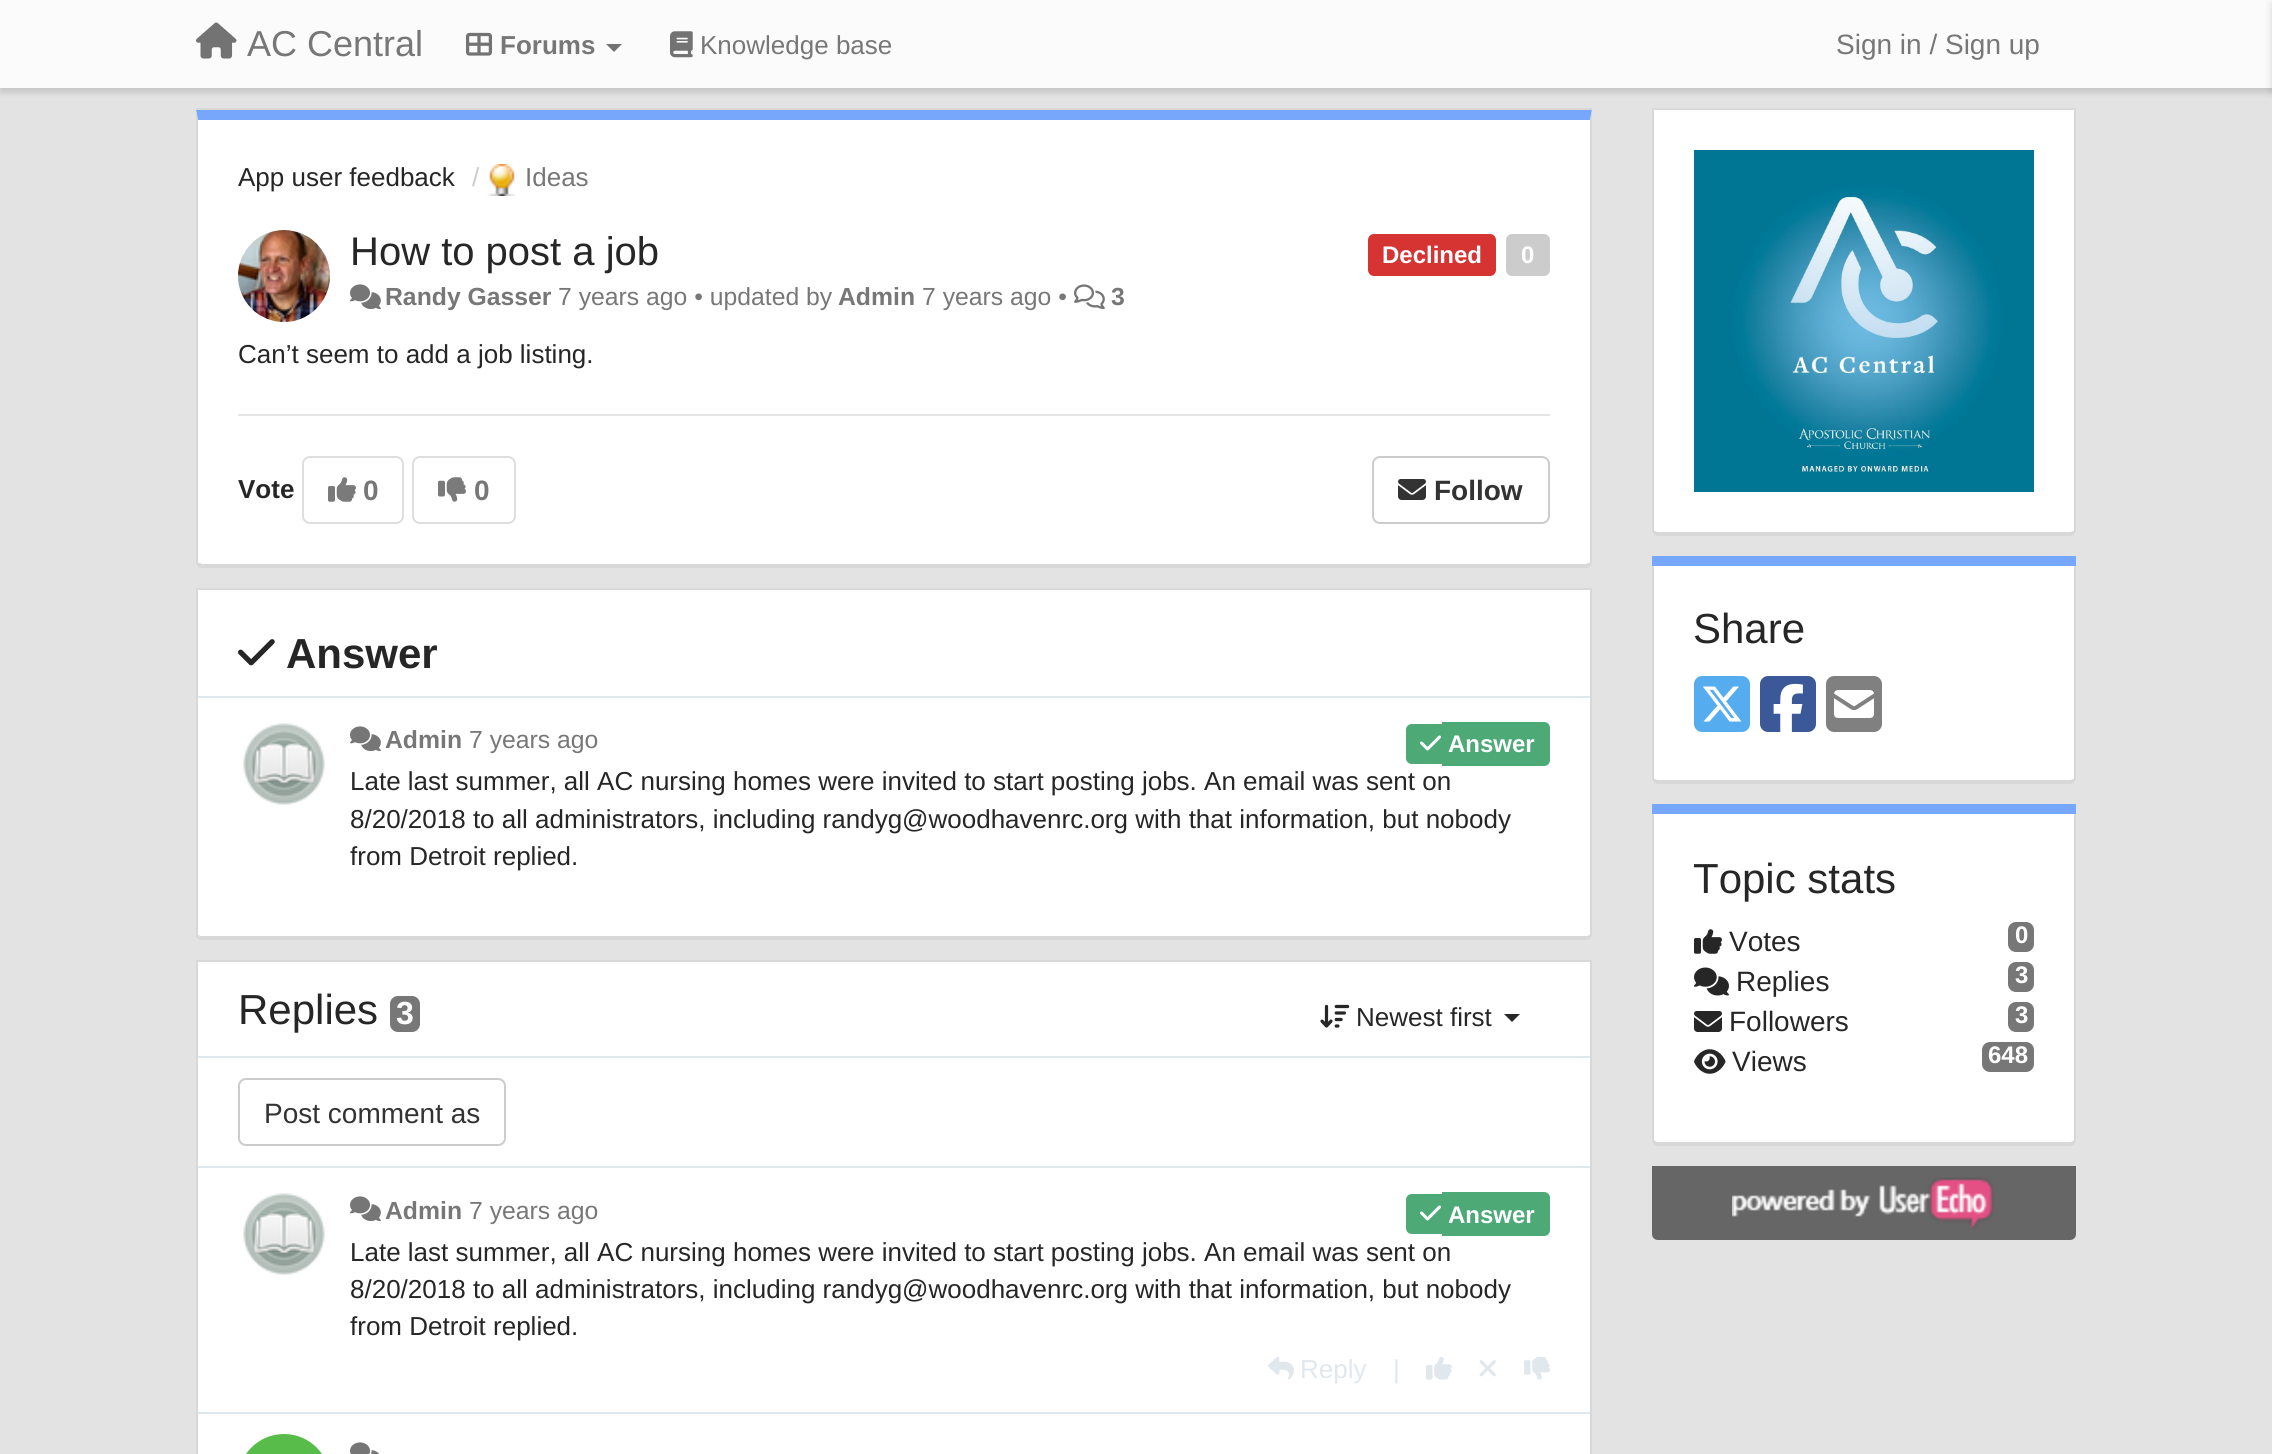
import math
import cairo


def use_color(cr, r, g, b):
  cr.set_source_rgb(r / 255, g / 255, b / 255)

def text(cr, x, y, s, family, size, color, bold=False, italic=False):
  cr.select_font_face(family, cairo.FONT_SLANT_ITALIC if italic else cairo.FONT_SLANT_NORMAL, cairo.FONT_WEIGHT_BOLD if bold else cairo.FONT_WEIGHT_NORMAL)
  cr.set_font_size(size)
  use_color(cr, *color)
  cr.move_to(x, y)
  cr.show_text(s)

def box(cr, x, y, w, h, *color):
  use_color(cr, *color)
  cr.rectangle(x, y, w, h)
  cr.fill()

def round_rect(cr, x, y, w, h, r):
  cr.new_sub_path()
  for i, (u, v) in enumerate([(x + w - r, y + h - r), (x + r, y + h - r), (x + r, y + r), (x + w - r, y + r)]):
    cr.arc(u, v, r, i * math.pi / 2, (i + 1) * math.pi / 2)
  cr.close_path()

def shadow(cr, x, y, w, h, r, blur, alpha):
  cr.push_group_with_content(cairo.CONTENT_ALPHA)
  cr.set_operator(cairo.OPERATOR_SOURCE)
  for i in range(15, -16, -2):
    e = blur * i / 6
    if min(w, h) + 2 * e > 0:
      cr.set_source_rgba(0, 0, 0, alpha * math.erfc((i - 1) / 8.5) / 2)
      round_rect(cr, x - e, y - e, w + 2 * e, h + 2 * e, max(0, min(r + e + blur * .6, min(w, h) / 2 + e)))
      cr.fill()
  cr.mask(cr.pop_group())

def picture(cr, path, x, y, w, h):
  cr.save()
  cr.set_source_surface(cairo.ImageSurface.create_from_png(path), x, y)
  cr.rectangle(x, y, w, h)
  cr.fill()
  cr.restore()

def draw(cr):
  use_color(cr, 227, 227, 227)
  cr.paint()
  use_color(cr, 0, 0, 0)
  shadow(cr, 0, 4, 2272, 88, 0, 4, 0.15)
  box(cr, 0, 0, 2272, 88, 251, 251, 251)
  picture(cr, "img_01.png", 196, 22, 41, 37)
  picture(cr, "img_02.png", 466, 32, 26, 24)
  use_color(cr, 115, 115, 115)
  cr.new_path()
  cr.move_to(606, 44)
  cr.line_to(622, 44)
  cr.line_to(614, 52)
  cr.close_path()
  cr.fill()
  picture(cr, "img_03.png", 670, 31, 23, 27)
  use_color(cr, 0, 0, 0)
  shadow(cr, 2272, 4, 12, 88, 0, 4, 0.15)
  box(cr, 196, 108, 1396, 2, 216, 216, 216)
  use_color(cr, 255, 255, 255)
  cr.new_path()
  cr.move_to(198, 120)
  cr.line_to(1590, 120)
  cr.line_to(1590, 562)
  cr.curve_to(1590, 563, 1588, 564, 1586, 564)
  cr.line_to(202, 564)
  cr.curve_to(200, 564, 198, 563, 198, 562)
  cr.close_path()
  cr.fill()
  use_color(cr, 118, 167, 250)
  cr.new_path()
  cr.move_to(196, 110)
  cr.line_to(198, 120)
  cr.line_to(1590, 120)
  cr.line_to(1592, 110)
  cr.close_path()
  cr.fill()
  use_color(cr, 216, 216, 216)
  cr.new_path()
  cr.move_to(1592, 110)
  cr.line_to(1590, 120)
  cr.line_to(1590, 562)
  cr.line_to(1589, 563)
  cr.line_to(1591, 565)
  cr.line_to(1592, 562)
  cr.close_path()
  cr.fill()
  cr.new_path()
  cr.move_to(202, 568)
  cr.line_to(1586, 568)
  cr.curve_to(1588, 568, 1590, 567, 1591, 565)
  cr.line_to(1589, 563)
  cr.line_to(1586, 564)
  cr.line_to(202, 564)
  cr.line_to(199, 563)
  cr.line_to(197, 565)
  cr.curve_to(198, 567, 200, 568, 202, 568)
  cr.close_path()
  cr.fill()
  cr.new_path()
  cr.move_to(198, 120)
  cr.line_to(196, 110)
  cr.line_to(196, 562)
  cr.line_to(197, 565)
  cr.line_to(199, 563)
  cr.line_to(198, 562)
  cr.close_path()
  cr.fill()
  picture(cr, "img_04.png", 487, 164, 29, 32)
  picture(cr, "img_05.png", 238, 230, 92, 92)
  use_color(cr, 214, 51, 51)
  round_rect(cr, 1368, 234, 128, 42, 6)
  cr.fill()
  use_color(cr, 204, 204, 204)
  round_rect(cr, 1506, 234, 44, 42, 6)
  cr.fill()
  picture(cr, "img_06.png", 350, 284, 31, 26)
  picture(cr, "img_07.png", 1074, 284, 31, 26)
  box(cr, 238, 414, 1312, 2, 229, 229, 229)
  round_rect(cr, 303, 457, 100, 66, 7)
  use_color(cr, 222, 222, 222)
  cr.stroke()
  picture(cr, "img_08.png", 328, 477, 28, 25)
  round_rect(cr, 413, 457, 102, 66, 7)
  cr.stroke()
  picture(cr, "img_09.png", 438, 477, 28, 25)
  round_rect(cr, 1373, 457, 176, 66, 7)
  use_color(cr, 204, 204, 204)
  cr.stroke()
  picture(cr, "img_10.png", 1398, 479, 28, 21)
  use_color(cr, 255, 255, 255)
  cr.new_path()
  cr.move_to(198, 590)
  cr.line_to(1590, 590)
  cr.line_to(1590, 934)
  cr.curve_to(1590, 935, 1588, 936, 1586, 936)
  cr.line_to(202, 936)
  cr.curve_to(200, 936, 198, 935, 198, 934)
  cr.close_path()
  cr.fill()
  cr.new_path()
  cr.move_to(197, 589)
  cr.line_to(1591, 589)
  cr.line_to(1591, 934)
  cr.curve_to(1591, 937, 1589, 939, 1586, 939)
  cr.line_to(202, 939)
  cr.curve_to(199, 939, 197, 937, 197, 934)
  cr.close_path()
  use_color(cr, 216, 216, 216)
  cr.stroke()
  box(cr, 200, 936, 1390, 2, 216, 216, 216)
  picture(cr, "img_11.png", 238, 639, 37, 27)
  box(cr, 198, 696, 1392, 2, 225, 232, 237)
  picture(cr, "img_12.png", 243, 723, 82, 82)
  picture(cr, "img_06.png", 350, 726, 31, 26)
  use_color(cr, 77, 170, 119)
  cr.new_path()
  cr.move_to(1412, 724)
  cr.line_to(1442, 724)
  cr.line_to(1442, 764)
  cr.line_to(1412, 764)
  cr.curve_to(1408.5, 764, 1406, 761.5, 1406, 758)
  cr.line_to(1406, 730)
  cr.curve_to(1406, 726.5, 1408.5, 724, 1412, 724)
  cr.close_path()
  cr.fill()
  cr.new_path()
  cr.move_to(1442, 722)
  cr.line_to(1544, 722)
  cr.curve_to(1547.5, 722, 1550, 724.5, 1550, 728)
  cr.line_to(1550, 760)
  cr.curve_to(1550, 763.5, 1547.5, 766, 1544, 766)
  cr.line_to(1442, 766)
  cr.close_path()
  cr.fill()
  picture(cr, "img_13.png", 1420, 735, 21, 16)
  box(cr, 196, 960, 1396, 2, 216, 216, 216)
  box(cr, 198, 962, 1392, 492, 255, 255, 255)
  use_color(cr, 216, 216, 216)
  cr.set_fill_rule(cairo.FILL_RULE_EVEN_ODD)
  cr.new_path()
  cr.move_to(196, 962)
  cr.line_to(1592, 962)
  cr.line_to(1592, 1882)
  cr.curve_to(1592, 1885, 1589, 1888, 1586, 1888)
  cr.line_to(202, 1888)
  cr.curve_to(199, 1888, 196, 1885, 196, 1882)
  cr.close_path()
  cr.move_to(198, 962)
  cr.line_to(1590, 962)
  cr.line_to(1590, 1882)
  cr.curve_to(1590, 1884, 1588, 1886, 1586, 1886)
  cr.line_to(202, 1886)
  cr.curve_to(200, 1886, 198, 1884, 198, 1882)
  cr.close_path()
  cr.fill()
  use_color(cr, 119, 119, 119)
  round_rect(cr, 390, 996, 30, 36, 8)
  cr.fill()
  picture(cr, "img_14.png", 1320, 1004, 30, 24)
  use_color(cr, 38, 38, 38)
  cr.set_fill_rule(cairo.FILL_RULE_WINDING)
  cr.new_path()
  cr.move_to(1504, 1014)
  cr.line_to(1520, 1014)
  cr.line_to(1512, 1022)
  cr.close_path()
  cr.fill()
  box(cr, 198, 1056, 1392, 2, 225, 232, 237)
  box(cr, 198, 1166, 1392, 2, 225, 232, 237)
  round_rect(cr, 239, 1079, 266, 66, 7)
  use_color(cr, 204, 204, 204)
  cr.stroke()
  box(cr, 198, 1412, 1392, 2, 225, 232, 237)
  picture(cr, "img_15.png", 243, 1193, 82, 82)
  picture(cr, "img_06.png", 350, 1196, 31, 26)
  use_color(cr, 77, 170, 119)
  cr.new_path()
  cr.move_to(1412, 1194)
  cr.line_to(1442, 1194)
  cr.line_to(1442, 1234)
  cr.line_to(1412, 1234)
  cr.curve_to(1408.5, 1234, 1406, 1231.5, 1406, 1228)
  cr.line_to(1406, 1200)
  cr.curve_to(1406, 1196.5, 1408.5, 1194, 1412, 1194)
  cr.close_path()
  cr.fill()
  cr.new_path()
  cr.move_to(1442, 1192)
  cr.line_to(1544, 1192)
  cr.curve_to(1547.5, 1192, 1550, 1194.5, 1550, 1198)
  cr.line_to(1550, 1230)
  cr.curve_to(1550, 1233.5, 1547.5, 1236, 1544, 1236)
  cr.line_to(1442, 1236)
  cr.close_path()
  cr.fill()
  picture(cr, "img_13.png", 1420, 1205, 21, 16)
  picture(cr, "img_16.png", 1268, 1357, 26, 23)
  picture(cr, "img_17.png", 1426, 1357, 26, 23)
  picture(cr, "img_18.png", 1479, 1360, 17, 17)
  picture(cr, "img_19.png", 1524, 1357, 26, 23)
  use_color(cr, 88, 188, 74)
  cr.new_path()
  cr.move_to(284, 1434)
  cr.curve_to(309.5, 1434, 330, 1454.5, 330, 1480)
  cr.line_to(330, 1454)
  cr.line_to(238, 1454)
  cr.line_to(238, 1480)
  cr.curve_to(238, 1454.5, 258.5, 1434, 284, 1434)
  cr.close_path()
  cr.fill()
  picture(cr, "img_20.png", 350, 1442, 30, 12)
  box(cr, 1652, 108, 424, 2, 216, 216, 216)
  use_color(cr, 255, 255, 255)
  cr.new_path()
  cr.move_to(1654, 110)
  cr.line_to(2074, 110)
  cr.line_to(2074, 530)
  cr.curve_to(2074, 531, 2072, 532, 2070, 532)
  cr.line_to(1658, 532)
  cr.curve_to(1656, 532, 1654, 531, 1654, 530)
  cr.close_path()
  cr.fill()
  use_color(cr, 216, 216, 216)
  cr.set_fill_rule(cairo.FILL_RULE_EVEN_ODD)
  cr.new_path()
  cr.move_to(1652, 110)
  cr.line_to(2076, 110)
  cr.line_to(2076, 530)
  cr.curve_to(2076, 533, 2073, 536, 2070, 536)
  cr.line_to(1658, 536)
  cr.curve_to(1655, 536, 1652, 533, 1652, 530)
  cr.close_path()
  cr.move_to(1654, 110)
  cr.line_to(2074, 110)
  cr.line_to(2074, 530)
  cr.curve_to(2074, 531, 2072, 532, 2070, 532)
  cr.line_to(1658, 532)
  cr.curve_to(1656, 532, 1654, 531, 1654, 530)
  cr.close_path()
  cr.fill()
  picture(cr, "img_21.png", 1694, 150, 340, 342)
  box(cr, 1652, 556, 424, 10, 118, 167, 250)
  use_color(cr, 255, 255, 255)
  cr.set_fill_rule(cairo.FILL_RULE_WINDING)
  cr.new_path()
  cr.move_to(1654, 566)
  cr.line_to(2074, 566)
  cr.line_to(2074, 778)
  cr.curve_to(2074, 779, 2072, 780, 2070, 780)
  cr.line_to(1658, 780)
  cr.curve_to(1656, 780, 1654, 779, 1654, 778)
  cr.close_path()
  cr.fill()
  use_color(cr, 216, 216, 216)
  cr.set_fill_rule(cairo.FILL_RULE_EVEN_ODD)
  cr.new_path()
  cr.move_to(1652, 566)
  cr.line_to(2076, 566)
  cr.line_to(2076, 778)
  cr.curve_to(2076, 781, 2073, 784, 2070, 784)
  cr.line_to(1658, 784)
  cr.curve_to(1655, 784, 1652, 781, 1652, 778)
  cr.close_path()
  cr.move_to(1654, 566)
  cr.line_to(2074, 566)
  cr.line_to(2074, 778)
  cr.curve_to(2074, 779, 2072, 780, 2070, 780)
  cr.line_to(1658, 780)
  cr.curve_to(1656, 780, 1654, 779, 1654, 778)
  cr.close_path()
  cr.fill()
  picture(cr, "img_22.png", 1694, 676, 56, 56)
  picture(cr, "img_23.png", 1760, 676, 56, 56)
  picture(cr, "img_24.png", 1826, 676, 56, 56)
  box(cr, 1652, 804, 424, 10, 118, 167, 250)
  use_color(cr, 255, 255, 255)
  cr.set_fill_rule(cairo.FILL_RULE_WINDING)
  cr.new_path()
  cr.move_to(1654, 814)
  cr.line_to(2074, 814)
  cr.line_to(2074, 1140)
  cr.curve_to(2074, 1141, 2072, 1142, 2070, 1142)
  cr.line_to(1658, 1142)
  cr.curve_to(1656, 1142, 1654, 1141, 1654, 1140)
  cr.close_path()
  cr.fill()
  use_color(cr, 216, 216, 216)
  cr.set_fill_rule(cairo.FILL_RULE_EVEN_ODD)
  cr.new_path()
  cr.move_to(1652, 814)
  cr.line_to(2076, 814)
  cr.line_to(2076, 1140)
  cr.curve_to(2076, 1143, 2073, 1146, 2070, 1146)
  cr.line_to(1658, 1146)
  cr.curve_to(1655, 1146, 1652, 1143, 1652, 1140)
  cr.close_path()
  cr.move_to(1654, 814)
  cr.line_to(2074, 814)
  cr.line_to(2074, 1140)
  cr.curve_to(2074, 1141, 2072, 1142, 2070, 1142)
  cr.line_to(1658, 1142)
  cr.curve_to(1656, 1142, 1654, 1141, 1654, 1140)
  cr.close_path()
  cr.fill()
  picture(cr, "img_25.png", 1694, 929, 28, 25)
  use_color(cr, 119, 119, 119)
  round_rect(cr, 2008, 922, 26, 30, 8)
  cr.fill()
  picture(cr, "img_26.png", 1694, 967, 35, 29)
  round_rect(cr, 2008, 962, 26, 30, 8)
  cr.fill()
  picture(cr, "img_27.png", 1694, 1011, 28, 21)
  round_rect(cr, 2008, 1002, 26, 30, 8)
  cr.fill()
  picture(cr, "img_28.png", 1694, 1049, 32, 25)
  round_rect(cr, 1982, 1042, 52, 30, 8)
  cr.fill()
  use_color(cr, 102, 102, 102)
  cr.new_path()
  cr.move_to(1652, 1166)
  cr.line_to(2076, 1166)
  cr.line_to(2076, 1234)
  cr.curve_to(2076, 1237.5, 2073.5, 1240, 2070, 1240)
  cr.line_to(1658, 1240)
  cr.curve_to(1654.5, 1240, 1652, 1237.5, 1652, 1234)
  cr.close_path()
  cr.fill()
  picture(cr, "img_29.png", 1732, 1177, 262, 52)
  text(cr, 247, 56, "AC Central", "Liberation Sans", 36, (119, 119, 119))
  text(cr, 500, 54, "Forums", "Liberation Sans", 26, (119, 119, 119), bold=True)
  text(cr, 700, 54, "Knowledge base", "Liberation Sans", 26, (119, 119, 119))
  text(cr, 1836, 54, "Sign in / Sign up", "Liberation Sans", 28, (119, 119, 119))
  text(cr, 238, 186, "App user feedback", "Liberation Sans", 26, (38, 38, 38))
  text(cr, 472, 186, "/", "Liberation Sans", 26, (204, 204, 204))
  text(cr, 525, 186, "Ideas", "Liberation Sans", 26, (119, 119, 119))
  text(cr, 350, 265, "How to post a job", "Liberation Sans", 40, (38, 38, 38))
  text(cr, 1382, 263, "Declined", "Liberation Sans", 24, (255, 255, 255), bold=True)
  text(cr, 1521, 263, "0", "Liberation Sans", 24, (255, 255, 255), bold=True)
  text(cr, 385, 305, "Randy Gasser", "Liberation Sans", 24.75, (119, 119, 119), bold=True)
  text(cr, 558, 305, "7 years ago • updated by", "Liberation Sans", 24.75, (119, 119, 119))
  text(cr, 838, 305, "Admin", "Liberation Sans", 24.75, (119, 119, 119), bold=True)
  text(cr, 922, 305, "7 years ago •", "Liberation Sans", 24.75, (119, 119, 119))
  text(cr, 1111, 305, "3", "Liberation Sans", 24.75, (119, 119, 119), bold=True)
  text(cr, 238, 363, "Can’t seem to add a job listing.", "Liberation Sans", 26, (38, 38, 38))
  text(cr, 238, 498, "Vote", "Liberation Sans", 26, (38, 38, 38), bold=True)
  text(cr, 363, 500, "0", "Liberation Sans", 28, (119, 119, 119), bold=True)
  text(cr, 474, 500, "0", "Liberation Sans", 28, (119, 119, 119), bold=True)
  text(cr, 1434, 500, "Follow", "Liberation Sans", 28, (51, 51, 51), bold=True)
  text(cr, 286, 668, "Answer", "Liberation Sans", 42, (38, 38, 38), bold=True)
  text(cr, 385, 748, "Admin", "Liberation Sans", 24.75, (119, 119, 119), bold=True)
  text(cr, 469, 748, "7 years ago", "Liberation Sans", 24.75, (119, 119, 119))
  text(cr, 1448, 752, "Answer", "Liberation Sans", 24, (255, 255, 255), bold=True)
  text(cr, 350, 790, "Late last summer, all AC nursing homes were invited to start posting jobs. An email was sent on", "Liberation Sans", 26, (38, 38, 38))
  text(cr, 350, 828, "8/20/2018 to all administrators, including randyg@woodhavenrc.org with that information, but nobody", "Liberation Sans", 26, (38, 38, 38))
  text(cr, 350, 865, "from Detroit replied.", "Liberation Sans", 26, (38, 38, 38))
  text(cr, 238, 1024, "Replies", "Liberation Sans", 42, (38, 38, 38))
  text(cr, 396, 1024, "3", "Liberation Sans", 32, (255, 255, 255), bold=True)
  text(cr, 1356, 1026, "Newest first", "Liberation Sans", 26, (38, 38, 38))
  text(cr, 264, 1123, "Post comment as", "Liberation Sans", 28, (51, 51, 51))
  text(cr, 385, 1219, "Admin", "Liberation Sans", 24.75, (119, 119, 119), bold=True)
  text(cr, 469, 1219, "7 years ago", "Liberation Sans", 24.75, (119, 119, 119))
  text(cr, 1448, 1223, "Answer", "Liberation Sans", 24, (255, 255, 255), bold=True)
  text(cr, 350, 1261, "Late last summer, all AC nursing homes were invited to start posting jobs. An email was sent on", "Liberation Sans", 26, (38, 38, 38))
  text(cr, 350, 1298, "8/20/2018 to all administrators, including randyg@woodhavenrc.org with that information, but nobody", "Liberation Sans", 26, (38, 38, 38))
  text(cr, 350, 1335, "from Detroit replied.", "Liberation Sans", 26, (38, 38, 38))
  text(cr, 1300, 1378, "Reply", "Liberation Sans", 26, (225, 232, 237))
  text(cr, 1393, 1378, "|", "Liberation Sans", 26, (225, 232, 237))
  text(cr, 1693, 643, "Share", "Liberation Sans", 42, (38, 38, 38))
  text(cr, 1693, 893, "Topic stats", "Liberation Sans", 42, (38, 38, 38))
  text(cr, 1729, 951, "Votes", "Liberation Sans", 28, (38, 38, 38))
  text(cr, 2015, 943, "0", "Liberation Sans", 24, (255, 255, 255), bold=True)
  text(cr, 1736, 991, "Replies", "Liberation Sans", 28, (38, 38, 38))
  text(cr, 2015, 983, "3", "Liberation Sans", 24, (255, 255, 255), bold=True)
  text(cr, 1729, 1031, "Followers", "Liberation Sans", 28, (38, 38, 38))
  text(cr, 2015, 1023, "3", "Liberation Sans", 24, (255, 255, 255), bold=True)
  text(cr, 1732, 1071, "Views", "Liberation Sans", 28, (38, 38, 38))
  text(cr, 1988, 1063, "648", "Liberation Sans", 24, (255, 255, 255), bold=True)


surface = cairo.ImageSurface(cairo.FORMAT_RGB24, 2272, 1454)
cr = cairo.Context(surface)
options = cairo.FontOptions()
options.set_hint_metrics(cairo.HINT_METRICS_OFF)
options.set_hint_style(cairo.HINT_STYLE_NONE)
cr.set_font_options(options)
cr.set_miter_limit(4)
draw(cr)
surface.write_to_png("out.png")
